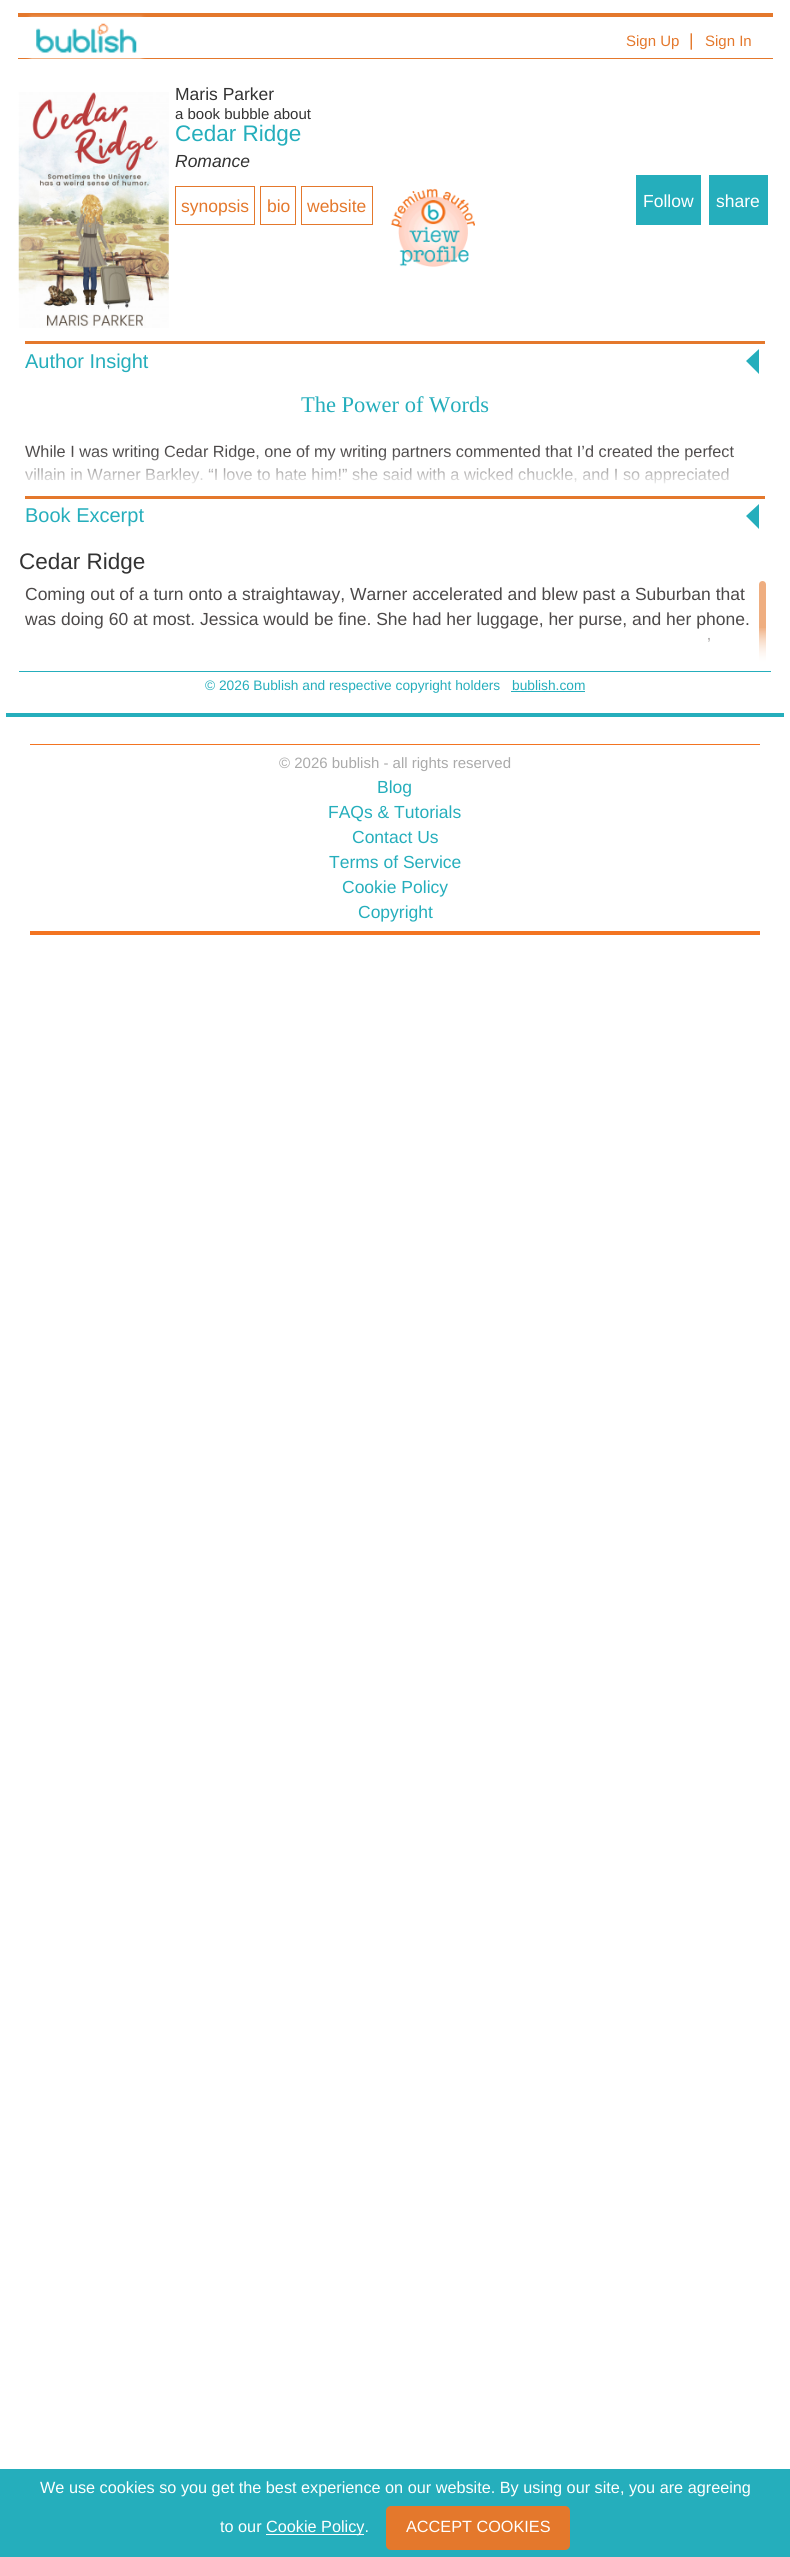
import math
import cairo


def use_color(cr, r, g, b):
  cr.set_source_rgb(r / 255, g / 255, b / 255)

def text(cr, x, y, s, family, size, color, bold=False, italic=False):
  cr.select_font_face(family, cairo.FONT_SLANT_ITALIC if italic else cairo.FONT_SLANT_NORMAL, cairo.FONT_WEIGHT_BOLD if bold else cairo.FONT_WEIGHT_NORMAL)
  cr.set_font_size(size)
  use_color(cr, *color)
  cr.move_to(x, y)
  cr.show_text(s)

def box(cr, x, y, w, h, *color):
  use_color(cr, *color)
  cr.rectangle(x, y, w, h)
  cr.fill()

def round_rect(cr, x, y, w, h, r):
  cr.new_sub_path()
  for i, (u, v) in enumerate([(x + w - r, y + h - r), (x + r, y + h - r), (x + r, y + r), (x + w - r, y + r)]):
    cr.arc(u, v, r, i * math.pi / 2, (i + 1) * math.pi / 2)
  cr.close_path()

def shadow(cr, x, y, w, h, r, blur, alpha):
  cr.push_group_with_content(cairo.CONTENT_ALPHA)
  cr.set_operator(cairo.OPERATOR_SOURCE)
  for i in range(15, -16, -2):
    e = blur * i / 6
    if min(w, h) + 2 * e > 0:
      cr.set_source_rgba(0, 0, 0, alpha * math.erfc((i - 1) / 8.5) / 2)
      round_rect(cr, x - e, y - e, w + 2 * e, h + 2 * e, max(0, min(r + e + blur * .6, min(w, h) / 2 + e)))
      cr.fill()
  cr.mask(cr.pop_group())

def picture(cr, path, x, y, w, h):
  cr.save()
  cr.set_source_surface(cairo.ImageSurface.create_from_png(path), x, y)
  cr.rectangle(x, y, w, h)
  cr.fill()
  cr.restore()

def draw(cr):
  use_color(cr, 255, 255, 255)
  cr.paint()
  box(cr, 18, 13, 755, 4, 228, 120, 44)
  box(cr, 18, 58, 755, 1, 228, 120, 44)
  cr.save()
  cr.set_fill_rule(cairo.FILL_RULE_EVEN_ODD)
  cr.new_path()
  cr.move_to(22, 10)
  cr.line_to(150, 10)
  cr.line_to(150, 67)
  cr.line_to(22, 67)
  cr.close_path()
  cr.move_to(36, 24)
  cr.line_to(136, 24)
  cr.line_to(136, 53)
  cr.line_to(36, 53)
  cr.close_path()
  cr.clip()
  use_color(cr, 255, 255, 255)
  shadow(cr, 31, 19, 110, 39, 0, 2.5, 1)
  cr.restore()
  picture(cr, "img_01.png", 36, 23, 101, 30)
  box(cr, 6, 713, 778, 4, 37, 174, 188)
  picture(cr, "img_02.png", 18, 92, 151, 236)
  cr.rectangle(175.5, 186.5, 79, 38)
  use_color(cr, 228, 120, 44)
  cr.set_line_width(1)
  cr.stroke()
  cr.rectangle(260.5, 186.5, 35, 38)
  cr.stroke()
  cr.rectangle(301.5, 186.5, 71, 38)
  cr.stroke()
  picture(cr, "img_03.png", 390, 188, 85, 79)
  box(cr, 636, 175, 65, 50, 37, 174, 188)
  box(cr, 709, 175, 59, 50, 37, 174, 188)
  box(cr, 25, 341, 740, 3, 228, 120, 44)
  use_color(cr, 37, 174, 188)
  cr.new_path()
  cr.move_to(759, 349)
  cr.line_to(759, 374)
  cr.line_to(746, 361)
  cr.close_path()
  cr.fill()
  box(cr, 25, 496, 740, 3, 228, 120, 44)
  use_color(cr, 37, 174, 188)
  cr.new_path()
  cr.move_to(759, 504)
  cr.line_to(759, 529)
  cr.line_to(746, 516)
  cr.close_path()
  cr.fill()
  use_color(cr, 239, 174, 128)
  cr.new_path()
  cr.move_to(762.5, 581)
  cr.curve_to(764.5, 581, 766, 582.5, 766, 584.5)
  cr.line_to(766, 671)
  cr.line_to(759, 671)
  cr.line_to(759, 584.5)
  cr.curve_to(759, 582.5, 760.5, 581, 762.5, 581)
  cr.close_path()
  cr.fill()
  box(cr, 19, 671, 752, 1, 37, 174, 188)
  box(cr, 511, 691, 74, 1, 37, 174, 188)
  box(cr, 30, 744, 730, 1, 243, 116, 33)
  box(cr, 30, 931, 730, 4, 243, 116, 33)
  box(cr, 0, 2469, 790, 88, 37, 174, 188)
  box(cr, 266, 2534, 98, 1, 255, 255, 255)
  use_color(cr, 228, 120, 44)
  round_rect(cr, 386, 2506, 184, 44, 5)
  cr.fill()
  text(cr, 626, 46, "Sign Up", "Liberation Sans", 15, (228, 120, 44))
  text(cr, 689, 46, "|", "Liberation Sans", 17.5, (228, 120, 44))
  text(cr, 705, 46, "Sign In", "Liberation Sans", 15, (228, 120, 44))
  text(cr, 175, 100, "Maris Parker", "Liberation Sans", 17.5, (51, 51, 51))
  text(cr, 175, 119, "a book bubble about", "Liberation Sans", 15, (51, 51, 51))
  text(cr, 175, 141, "Cedar Ridge", "Liberation Sans", 22.5, (37, 174, 188))
  text(cr, 175, 167, "Romance", "Liberation Sans", 17.5, (51, 51, 51), italic=True)
  text(cr, 181, 212, "synopsis", "Liberation Sans", 17.5, (228, 120, 44))
  text(cr, 267, 212, "bio", "Liberation Sans", 17.5, (228, 120, 44))
  text(cr, 307, 212, "website", "Liberation Sans", 17.5, (228, 120, 44))
  text(cr, 643, 207, "Follow", "Liberation Sans", 17.5, (255, 255, 255))
  text(cr, 716, 207, "share", "Liberation Sans", 17.5, (255, 255, 255))
  text(cr, 25, 368, "Author Insight", "Liberation Sans", 20, (37, 174, 188))
  text(cr, 301, 412, "The Power of Words", "Liberation Serif", 22.5, (37, 174, 188))
  text(cr, 25, 457, "While I was writing Cedar Ridge, one of my writing partners commented that I’d created the perfect", "Liberation Sans", 16.25, (76, 73, 73))
  text(cr, 25, 480, "villain in Warner Barkley. “I love to hate him!” she said with a wicked chuckle, and I so appreciated", "Liberation Sans", 16.25, (76, 73, 73))
  gradient = cairo.LinearGradient(395, 452, 395, 496)
  gradient.add_color_stop_rgba(0, 1, 1, 1, 0)
  gradient.add_color_stop_rgba(0.8, 1, 1, 1, 1)
  gradient.add_color_stop_rgba(1, 1, 1, 1, 1)
  cr.set_source(gradient)
  cr.rectangle(25, 453, 709, 31)
  cr.fill()
  text(cr, 25, 522, "Book Excerpt", "Liberation Sans", 20, (37, 174, 188))
  text(cr, 19, 569, "Cedar Ridge", "Liberation Sans", 22.5, (51, 51, 51))
  text(cr, 25, 600, "Coming out of a turn onto a straightaway, Warner accelerated and blew past a Suburban that", "Liberation Sans", 17.5, (76, 73, 73))
  text(cr, 25, 625, "was doing 60 at most. Jessica would be fine. She had her luggage, her purse, and her phone.", "Liberation Sans", 17.5, (76, 73, 73))
  text(cr, 707, 650, "’", "Liberation Sans", 17.5, (76, 73, 73))
  gradient = cairo.LinearGradient(395, 627, 395, 671)
  gradient.add_color_stop_rgba(0, 1, 1, 1, 0)
  gradient.add_color_stop_rgba(1, 1, 1, 1, 1)
  cr.set_source(gradient)
  cr.rectangle(97, 628, 669, 34)
  cr.fill()
  gradient = cairo.LinearGradient(395, 627, 395, 671)
  gradient.add_color_stop_rgba(0, 1, 1, 1, 0)
  gradient.add_color_stop_rgba(0.8, 1, 1, 1, 1)
  gradient.add_color_stop_rgba(1, 1, 1, 1, 1)
  cr.set_source(gradient)
  cr.rectangle(97, 628, 669, 43)
  cr.fill()
  text(cr, 205, 690, "© 2026 Bublish and respective copyright holders", "Liberation Sans", 13.75, (37, 174, 188))
  text(cr, 512, 690, "bublish.com", "Liberation Sans", 13.75, (37, 174, 188))
  text(cr, 279, 768, "© 2026 bublish - all rights reserved", "Liberation Sans", 15, (170, 170, 170))
  text(cr, 377, 793, "Blog", "Liberation Sans", 17.5, (37, 174, 188))
  text(cr, 328, 818, "FAQs & Tutorials", "Liberation Sans", 17.5, (37, 174, 188))
  text(cr, 352, 843, "Contact Us", "Liberation Sans", 17.5, (37, 174, 188))
  text(cr, 329, 868, "Terms of Service", "Liberation Sans", 17.5, (37, 174, 188))
  text(cr, 342, 893, "Cookie Policy", "Liberation Sans", 17.5, (37, 174, 188))
  text(cr, 358, 918, "Copyright", "Liberation Sans", 17.5, (37, 174, 188))
  text(cr, 40, 2493, "We use cookies so you get the best experience on our website. By using our site, you are agreeing", "Liberation Sans", 16.25, (255, 255, 255))
  text(cr, 220, 2532, "to our", "Liberation Sans", 16.25, (255, 255, 255))
  text(cr, 266, 2532, "Cookie Policy.", "Liberation Sans", 16.25, (255, 255, 255))
  text(cr, 406, 2532, "ACCEPT COOKIES", "Liberation Sans", 16.25, (255, 255, 255))


surface = cairo.ImageSurface(cairo.FORMAT_RGB24, 790, 2557)
cr = cairo.Context(surface)
options = cairo.FontOptions()
options.set_hint_metrics(cairo.HINT_METRICS_OFF)
options.set_hint_style(cairo.HINT_STYLE_NONE)
cr.set_font_options(options)
cr.set_miter_limit(4)
draw(cr)
surface.write_to_png("out.png")
